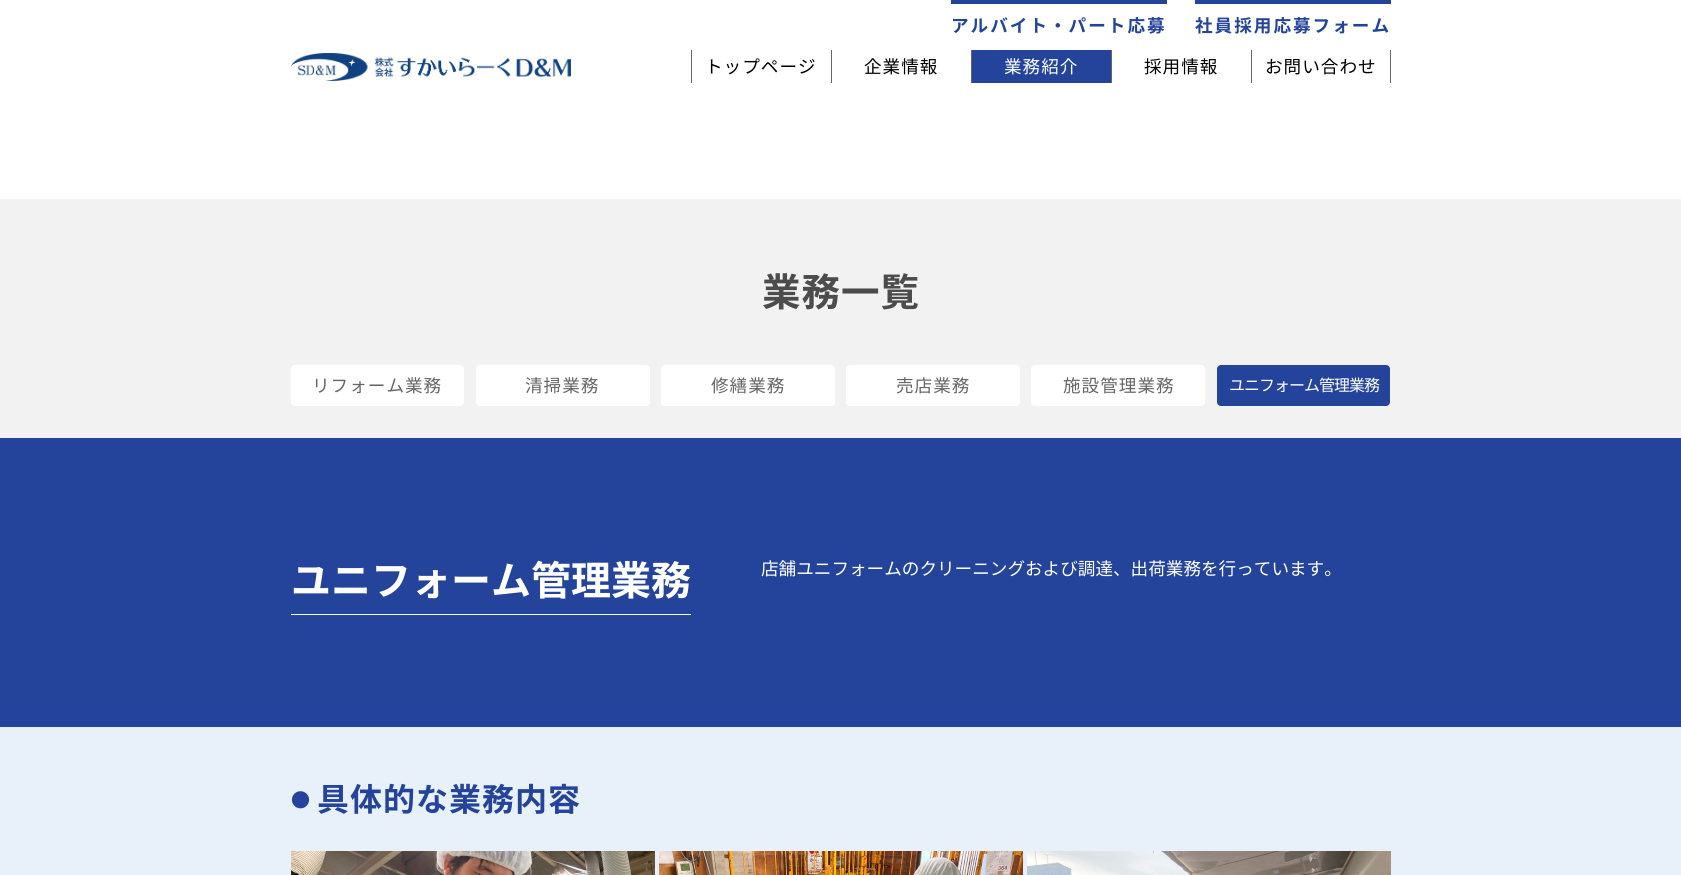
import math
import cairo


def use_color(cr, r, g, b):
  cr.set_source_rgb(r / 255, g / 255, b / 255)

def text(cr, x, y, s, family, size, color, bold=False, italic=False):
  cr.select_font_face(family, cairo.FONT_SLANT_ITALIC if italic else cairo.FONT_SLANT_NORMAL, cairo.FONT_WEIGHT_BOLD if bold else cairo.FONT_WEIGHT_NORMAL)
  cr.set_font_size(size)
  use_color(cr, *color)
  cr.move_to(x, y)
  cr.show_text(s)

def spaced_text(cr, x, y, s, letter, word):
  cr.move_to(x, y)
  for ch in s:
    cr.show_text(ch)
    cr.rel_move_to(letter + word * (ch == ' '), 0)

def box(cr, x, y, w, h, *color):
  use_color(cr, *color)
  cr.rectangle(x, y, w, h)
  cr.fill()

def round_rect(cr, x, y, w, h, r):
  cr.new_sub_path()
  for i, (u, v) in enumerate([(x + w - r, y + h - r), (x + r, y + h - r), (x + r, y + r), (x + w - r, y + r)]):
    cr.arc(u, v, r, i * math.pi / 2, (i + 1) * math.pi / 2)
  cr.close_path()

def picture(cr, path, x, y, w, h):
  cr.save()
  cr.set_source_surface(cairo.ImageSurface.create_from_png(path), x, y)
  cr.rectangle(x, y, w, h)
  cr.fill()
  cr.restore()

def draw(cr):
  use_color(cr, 255, 255, 255)
  cr.paint()
  box(cr, 951, 0, 216, 4, 36, 68, 155)
  box(cr, 1195, 0, 196, 4, 36, 68, 155)
  picture(cr, "img_01.png", 291, 53, 280, 28)
  box(cr, 691, 50, 1, 33, 102, 102, 102)
  box(cr, 831, 50, 1, 33, 102, 102, 102)
  box(cr, 971, 50, 1, 33, 102, 102, 102)
  box(cr, 972, 50, 139, 33, 36, 68, 155)
  box(cr, 1111, 50, 1, 33, 102, 102, 102)
  box(cr, 1390, 50, 1, 33, 102, 102, 102)
  box(cr, 1251, 50, 1, 33, 102, 102, 102)
  box(cr, 0, 199, 1681, 239, 242, 242, 242)
  use_color(cr, 255, 255, 255)
  round_rect(cr, 291, 365, 173, 41, 4)
  cr.fill()
  round_rect(cr, 476, 365, 174, 41, 4)
  cr.fill()
  round_rect(cr, 661, 365, 174, 41, 4)
  cr.fill()
  round_rect(cr, 846, 365, 174, 41, 4)
  cr.fill()
  round_rect(cr, 1031, 365, 174, 41, 4)
  cr.fill()
  use_color(cr, 36, 68, 155)
  round_rect(cr, 1217, 365, 173, 41, 4)
  cr.fill()
  box(cr, 0, 438, 1681, 289, 36, 68, 155)
  box(cr, 291, 614, 400, 1, 255, 255, 255)
  box(cr, 0, 727, 1681, 148, 232, 240, 249)
  picture(cr, "img_02.png", 291, 851, 364, 24)
  picture(cr, "img_03.png", 659, 851, 364, 24)
  picture(cr, "img_04.png", 1027, 851, 364, 24)
  cr.select_font_face("Noto Sans JP", cairo.FONT_SLANT_NORMAL, cairo.FONT_WEIGHT_BOLD)
  cr.set_font_size(17.6)
  use_color(cr, 36, 68, 155)
  spaced_text(cr, 951, 32, "アルバイト・パート応募", 2, 0)
  spaced_text(cr, 1195, 32, "社員採用応募フォーム", 2, 0)
  cr.select_font_face("Noto Sans JP")
  use_color(cr, 0, 0, 0)
  spaced_text(cr, 705, 73, "トップページ", 1, 0)
  spaced_text(cr, 864, 73, "企業情報", 1, 0)
  use_color(cr, 255, 255, 255)
  spaced_text(cr, 1004, 73, "業務紹介", 1, 0)
  use_color(cr, 0, 0, 0)
  spaced_text(cr, 1144, 73, "採用情報", 1, 0)
  spaced_text(cr, 1265, 73, "お問い合わせ", 1, 0)
  cr.select_font_face("Noto Sans JP", cairo.FONT_SLANT_NORMAL, cairo.FONT_WEIGHT_BOLD)
  cr.set_font_size(38.5)
  use_color(cr, 76, 76, 76)
  spaced_text(cr, 762, 306, "業務一覧", 1, 0)
  cr.select_font_face("Noto Sans JP")
  cr.set_font_size(17.6)
  use_color(cr, 102, 102, 102)
  spaced_text(cr, 312, 392, "リフォーム業務", 1, 0)
  spaced_text(cr, 525, 392, "清掃業務", 1, 0)
  spaced_text(cr, 711, 392, "修繕業務", 1, 0)
  spaced_text(cr, 896, 392, "売店業務", 1, 0)
  spaced_text(cr, 1063, 392, "施設管理業務", 1, 0)
  cr.set_font_size(16)
  use_color(cr, 255, 255, 255)
  spaced_text(cr, 1229, 391, "ユニフォーム管理業務", -1, 0)
  text(cr, 291, 595, "ユニフォーム管理業務", "Noto Sans JP", 40, (255, 255, 255), bold=True)
  text(cr, 761, 575, "店舗ユニフォームのクリーニングおよび調達、出荷業務を行っています。", "Noto Sans JP", 17.6, (255, 255, 255))
  cr.select_font_face("Noto Sans JP", cairo.FONT_SLANT_NORMAL, cairo.FONT_WEIGHT_BOLD)
  cr.set_font_size(19)
  use_color(cr, 36, 68, 155)
  spaced_text(cr, 291, 807, "●", 1, 0)
  cr.set_font_size(32)
  spaced_text(cr, 317, 811, "具体的な業務内容", 1, 0)


surface = cairo.ImageSurface(cairo.FORMAT_RGB24, 1681, 875)
cr = cairo.Context(surface)
options = cairo.FontOptions()
options.set_hint_metrics(cairo.HINT_METRICS_OFF)
options.set_hint_style(cairo.HINT_STYLE_NONE)
cr.set_font_options(options)
cr.set_miter_limit(4)
draw(cr)
surface.write_to_png("out.png")
